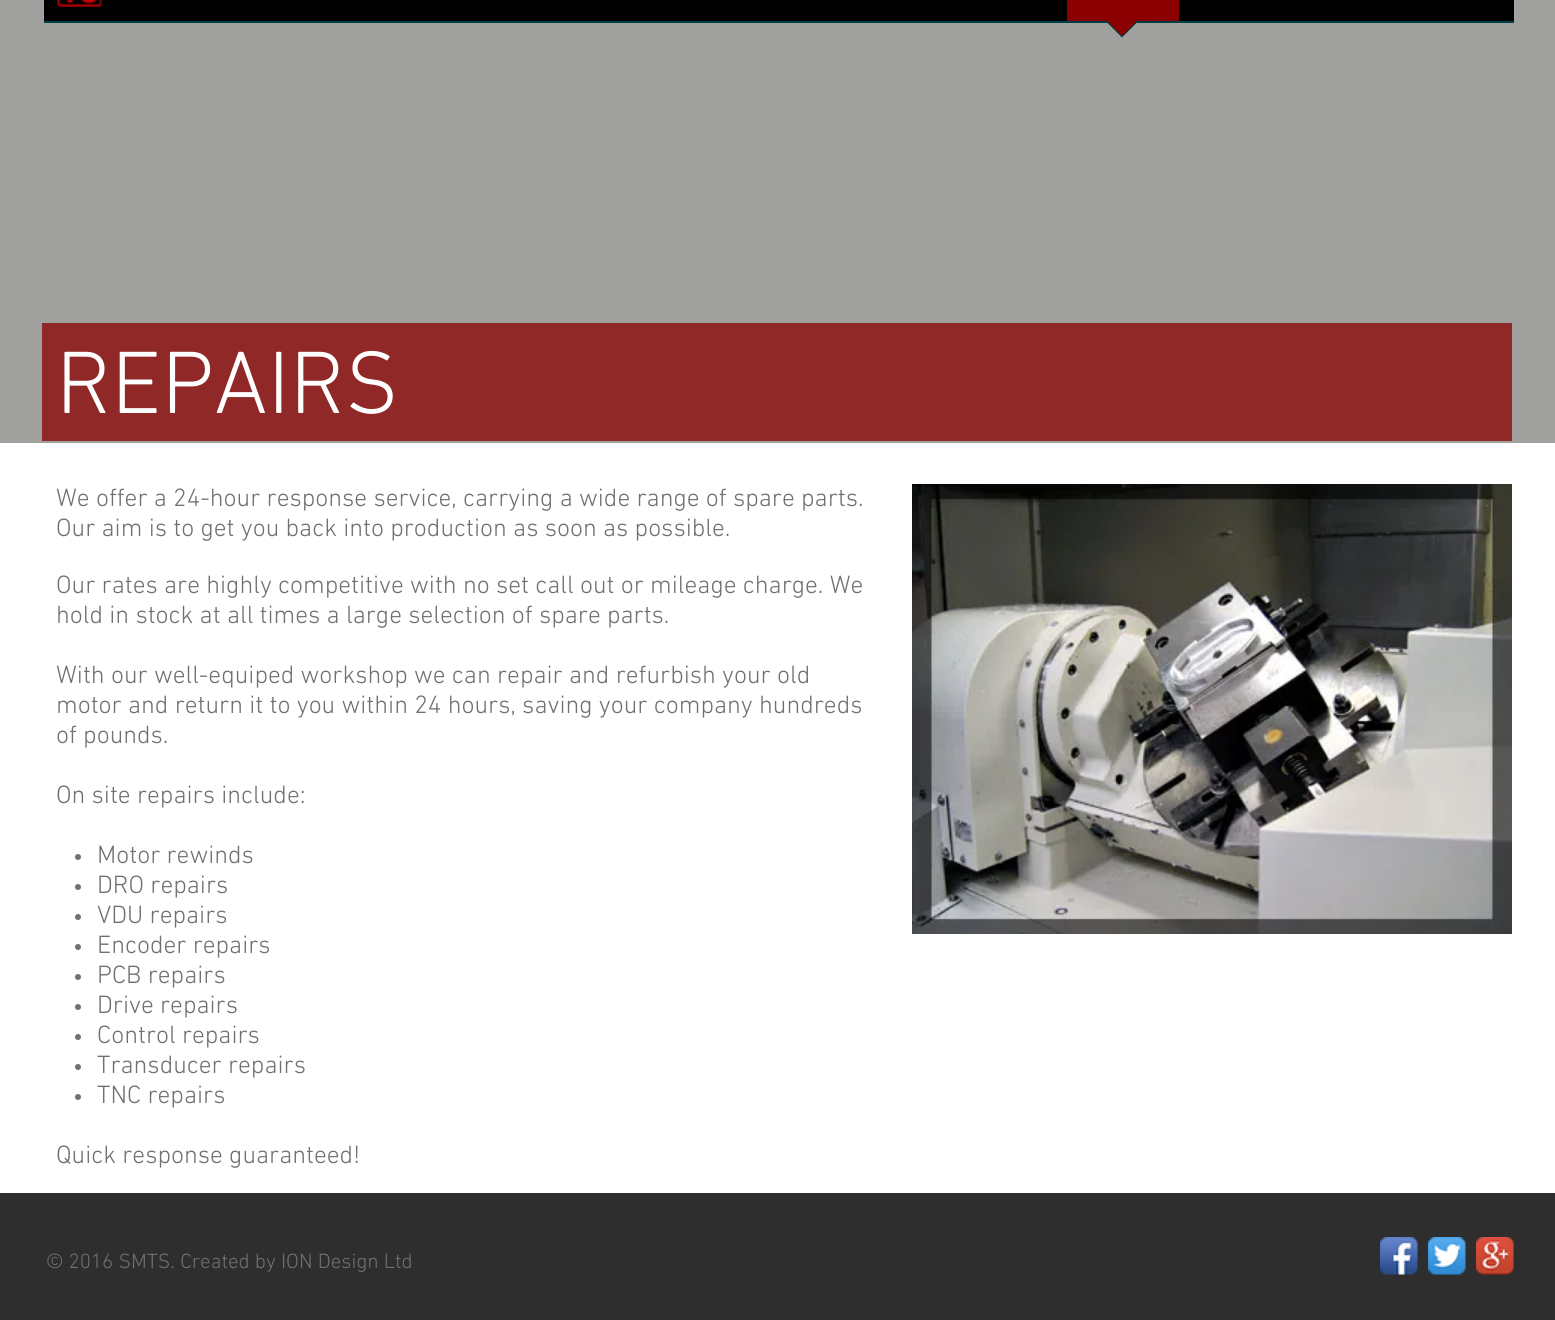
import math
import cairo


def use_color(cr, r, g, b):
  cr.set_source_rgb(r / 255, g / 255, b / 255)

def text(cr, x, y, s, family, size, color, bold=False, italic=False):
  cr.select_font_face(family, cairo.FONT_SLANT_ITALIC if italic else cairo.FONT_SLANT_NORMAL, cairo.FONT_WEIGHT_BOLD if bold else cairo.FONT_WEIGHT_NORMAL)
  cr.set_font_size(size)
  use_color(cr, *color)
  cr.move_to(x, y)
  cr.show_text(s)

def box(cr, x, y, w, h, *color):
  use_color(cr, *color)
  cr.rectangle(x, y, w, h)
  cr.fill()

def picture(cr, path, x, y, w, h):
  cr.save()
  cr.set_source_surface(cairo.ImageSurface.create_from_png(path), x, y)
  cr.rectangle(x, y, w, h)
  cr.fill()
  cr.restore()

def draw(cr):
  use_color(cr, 255, 255, 255)
  cr.paint()
  box(cr, 0, 0, 1555, 443, 160, 160, 159)
  box(cr, 44, 0, 1470, 21, 0, 0, 0)
  box(cr, 44, 21, 1470, 2, 0, 63, 68)
  box(cr, 1067, 0, 112, 21, 139, 0, 0)
  use_color(cr, 0, 63, 68)
  cr.new_path()
  cr.move_to(1105.5, 21)
  cr.line_to(1138.5, 21)
  cr.line_to(1122, 37.5)
  cr.close_path()
  cr.fill()
  use_color(cr, 139, 0, 0)
  cr.new_path()
  cr.move_to(1107, 21)
  cr.line_to(1137, 21)
  cr.line_to(1122, 36)
  cr.close_path()
  cr.fill()
  picture(cr, "img_01.png", 57, 0, 45, 7)
  box(cr, 42, 323, 1470, 118, 144, 40, 40)
  use_color(cr, 112, 112, 112)
  cr.arc(78, 857, 3, 0, 2 * math.pi)
  cr.fill()
  cr.arc(78, 887, 3, 0, 2 * math.pi)
  cr.fill()
  cr.arc(78, 917, 3, 0, 2 * math.pi)
  cr.fill()
  cr.arc(78, 947, 3, 0, 2 * math.pi)
  cr.fill()
  cr.arc(78, 977, 3, 0, 2 * math.pi)
  cr.fill()
  cr.arc(78, 1007, 3, 0, 2 * math.pi)
  cr.fill()
  cr.arc(78, 1037, 3, 0, 2 * math.pi)
  cr.fill()
  cr.arc(78, 1067, 3, 0, 2 * math.pi)
  cr.fill()
  cr.arc(78, 1097, 3, 0, 2 * math.pi)
  cr.fill()
  picture(cr, "img_02.png", 912, 484, 600, 450)
  box(cr, 0, 1193, 1555, 127, 47, 46, 46)
  picture(cr, "img_03.png", 1380, 1237, 38, 38)
  picture(cr, "img_04.png", 1428, 1237, 38, 38)
  picture(cr, "img_05.png", 1476, 1237, 38, 38)
  text(cr, 56, 413, "REPAIRS", "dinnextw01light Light", 90, (255, 255, 255))
  text(cr, 56, 506, "We offer a 24-hour response service, carrying a wide range of spare parts.", "dinnextw01light Light", 25.5, (112, 112, 112))
  text(cr, 56, 536, "Our aim is to get you back into production as soon as possible.", "dinnextw01light Light", 25.5, (112, 112, 112))
  text(cr, 56, 593, "Our rates are highly competitive with no set call out or mileage charge. We", "dinnextw01light Light", 25.5, (112, 112, 112))
  text(cr, 56, 623, "hold in stock at all times a large selection of spare parts.", "dinnextw01light Light", 25.5, (112, 112, 112))
  text(cr, 56, 683, "With our well-equiped workshop we can repair and refurbish your old", "dinnextw01light Light", 25.5, (112, 112, 112))
  text(cr, 56, 713, "motor and return it to you within 24 hours, saving your company hundreds", "dinnextw01light Light", 25.5, (112, 112, 112))
  text(cr, 56, 743, "of pounds.", "dinnextw01light Light", 25.5, (112, 112, 112))
  text(cr, 56, 803, "On site repairs include:", "dinnextw01light Light", 25.5, (112, 112, 112))
  text(cr, 97, 863, "Motor rewinds", "dinnextw01light Light", 25.5, (112, 112, 112))
  text(cr, 97, 893, "DRO repairs", "dinnextw01light Light", 25.5, (112, 112, 112))
  text(cr, 97, 923, "VDU repairs", "dinnextw01light Light", 25.5, (112, 112, 112))
  text(cr, 97, 953, "Encoder repairs", "dinnextw01light Light", 25.5, (112, 112, 112))
  text(cr, 97, 983, "PCB repairs", "dinnextw01light Light", 25.5, (112, 112, 112))
  text(cr, 97, 1013, "Drive repairs", "dinnextw01light Light", 25.5, (112, 112, 112))
  text(cr, 97, 1043, "Control repairs", "dinnextw01light Light", 25.5, (112, 112, 112))
  text(cr, 97, 1073, "Transducer repairs", "dinnextw01light Light", 25.5, (112, 112, 112))
  text(cr, 97, 1103, "TNC repairs", "dinnextw01light Light", 25.5, (112, 112, 112))
  text(cr, 56, 1163, "Quick response guaranteed!", "dinnextw01light Light", 25.5, (112, 112, 112))
  text(cr, 46, 1268, "© 2016 SMTS. Created by ION Design Ltd", "dinnextw01light Light", 21, (112, 112, 112))


surface = cairo.ImageSurface(cairo.FORMAT_RGB24, 1555, 1320)
cr = cairo.Context(surface)
options = cairo.FontOptions()
options.set_hint_metrics(cairo.HINT_METRICS_OFF)
options.set_hint_style(cairo.HINT_STYLE_NONE)
cr.set_font_options(options)
cr.set_miter_limit(4)
draw(cr)
surface.write_to_png("out.png")
